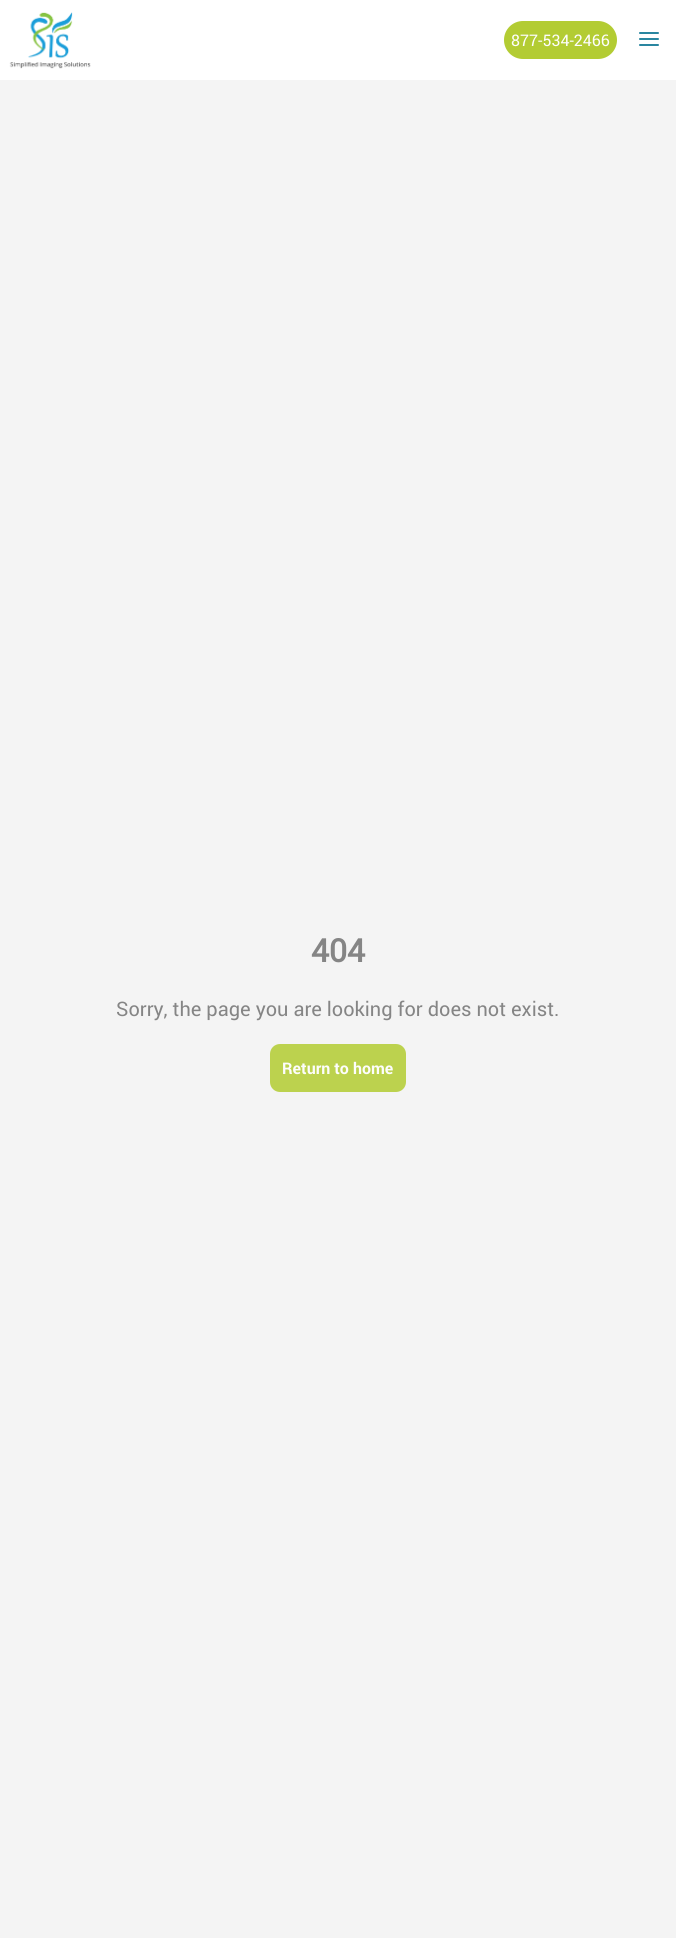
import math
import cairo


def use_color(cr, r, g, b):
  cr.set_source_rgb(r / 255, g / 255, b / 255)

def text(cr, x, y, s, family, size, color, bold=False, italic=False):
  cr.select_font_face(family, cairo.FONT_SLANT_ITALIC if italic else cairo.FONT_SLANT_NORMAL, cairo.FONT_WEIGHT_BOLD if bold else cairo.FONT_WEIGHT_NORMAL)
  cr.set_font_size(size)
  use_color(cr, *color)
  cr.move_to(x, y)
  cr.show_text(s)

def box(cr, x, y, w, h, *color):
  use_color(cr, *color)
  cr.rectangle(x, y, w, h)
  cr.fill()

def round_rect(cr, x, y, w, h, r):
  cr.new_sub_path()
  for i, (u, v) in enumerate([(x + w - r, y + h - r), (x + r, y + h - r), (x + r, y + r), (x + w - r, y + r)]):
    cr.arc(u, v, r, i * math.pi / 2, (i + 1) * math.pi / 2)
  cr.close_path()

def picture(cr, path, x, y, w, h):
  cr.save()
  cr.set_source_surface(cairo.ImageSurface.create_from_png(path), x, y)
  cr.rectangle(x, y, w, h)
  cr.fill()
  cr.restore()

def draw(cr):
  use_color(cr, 255, 255, 255)
  cr.paint()
  picture(cr, "img_01.png", 9, 12, 82, 57)
  use_color(cr, 179, 204, 51)
  round_rect(cr, 505, 22, 111, 36, 18)
  cr.fill_preserve()
  cr.stroke()
  picture(cr, "img_02.png", 639, 32, 20, 14)
  box(cr, 0, 80, 676, 1858, 244, 244, 244)
  use_color(cr, 188, 210, 78)
  round_rect(cr, 271, 1045, 134, 46, 9)
  cr.fill_preserve()
  cr.stroke()
  text(cr, 511, 46, "877-534-2466", "Roboto", 16, (253, 253, 253))
  text(cr, 311, 962, "404", "Roboto", 32, (133, 133, 133), bold=True)
  text(cr, 116, 1016, "Sorry, the page you are looking for does not exist.", "Roboto", 20, (133, 133, 133))
  text(cr, 282, 1074, "Return to home", "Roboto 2", 16, (253, 253, 253), bold=True)


surface = cairo.ImageSurface(cairo.FORMAT_RGB24, 676, 1938)
cr = cairo.Context(surface)
options = cairo.FontOptions()
options.set_hint_metrics(cairo.HINT_METRICS_OFF)
options.set_hint_style(cairo.HINT_STYLE_NONE)
cr.set_font_options(options)
cr.set_miter_limit(4)
draw(cr)
surface.write_to_png("out.png")
